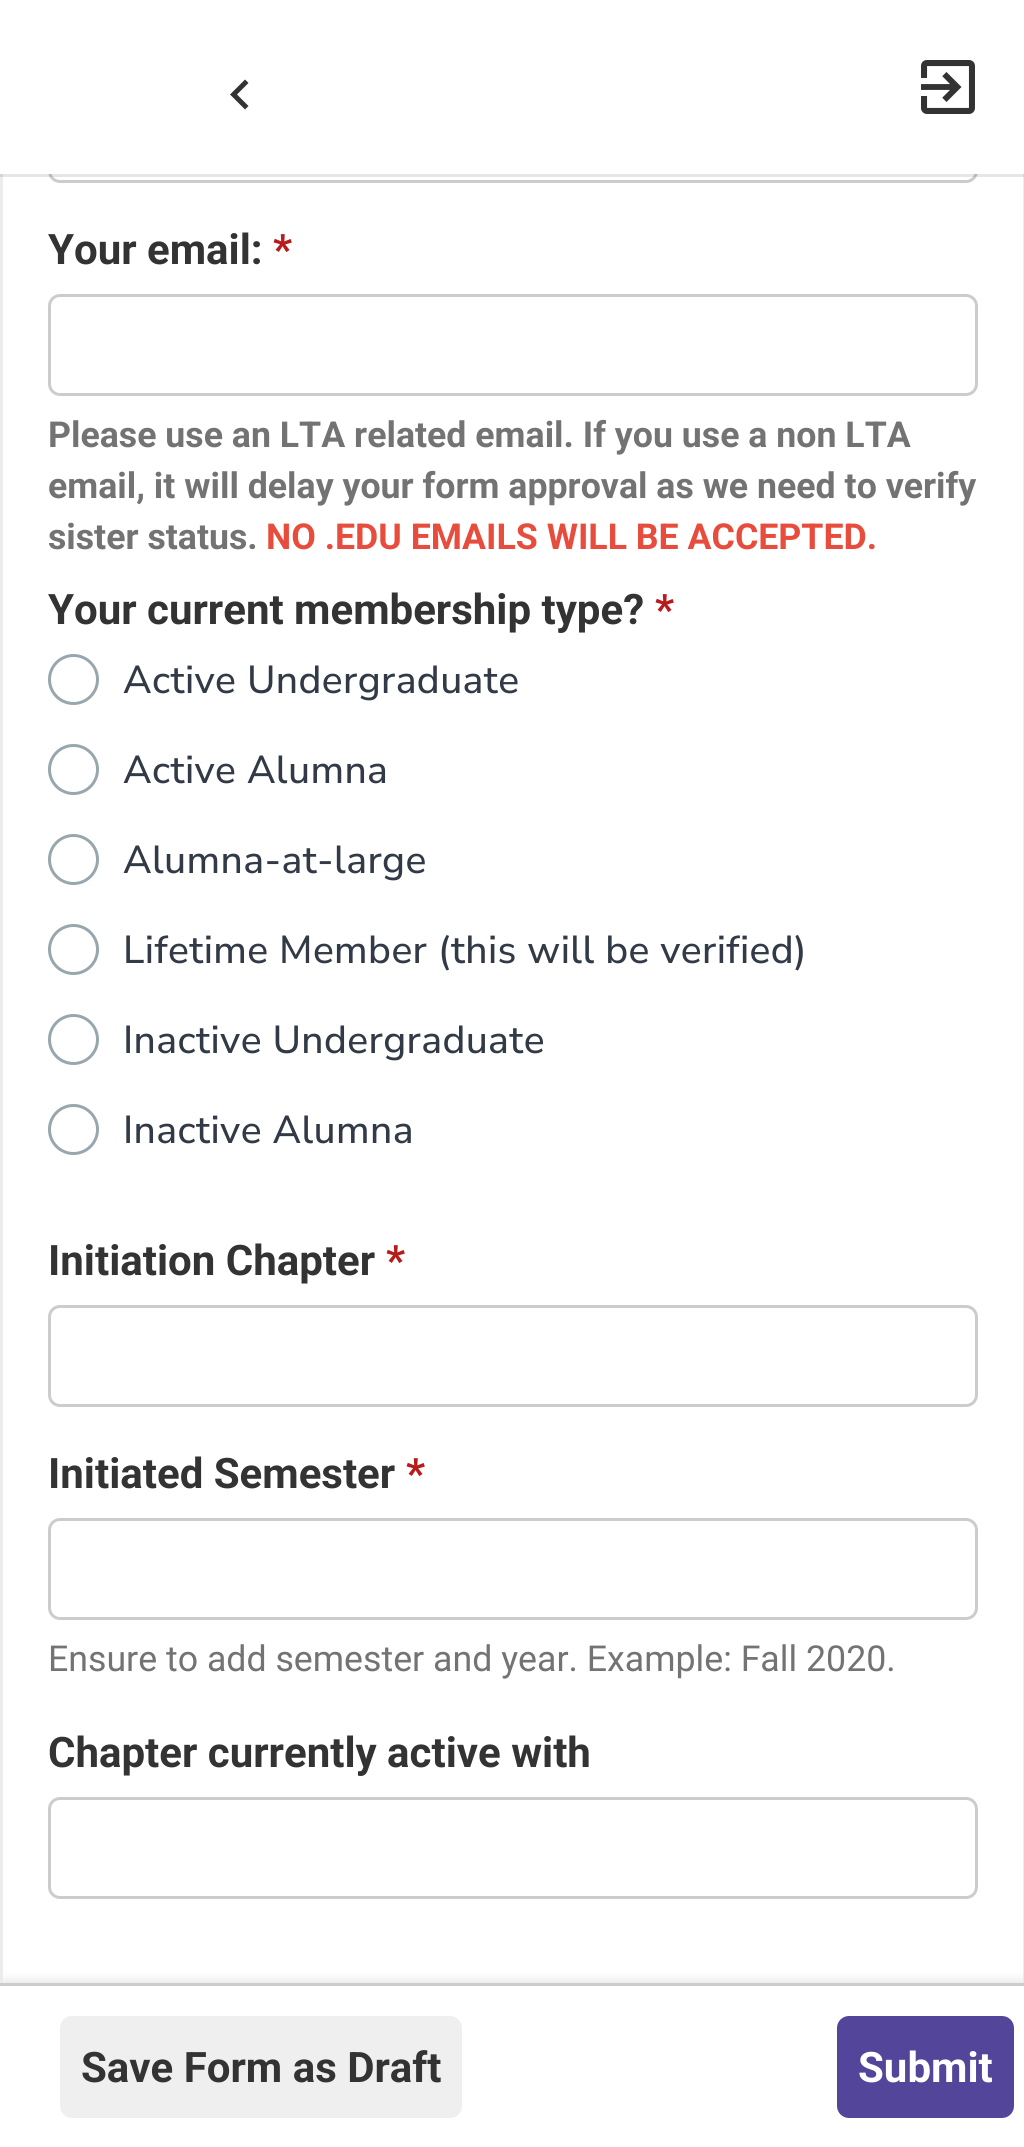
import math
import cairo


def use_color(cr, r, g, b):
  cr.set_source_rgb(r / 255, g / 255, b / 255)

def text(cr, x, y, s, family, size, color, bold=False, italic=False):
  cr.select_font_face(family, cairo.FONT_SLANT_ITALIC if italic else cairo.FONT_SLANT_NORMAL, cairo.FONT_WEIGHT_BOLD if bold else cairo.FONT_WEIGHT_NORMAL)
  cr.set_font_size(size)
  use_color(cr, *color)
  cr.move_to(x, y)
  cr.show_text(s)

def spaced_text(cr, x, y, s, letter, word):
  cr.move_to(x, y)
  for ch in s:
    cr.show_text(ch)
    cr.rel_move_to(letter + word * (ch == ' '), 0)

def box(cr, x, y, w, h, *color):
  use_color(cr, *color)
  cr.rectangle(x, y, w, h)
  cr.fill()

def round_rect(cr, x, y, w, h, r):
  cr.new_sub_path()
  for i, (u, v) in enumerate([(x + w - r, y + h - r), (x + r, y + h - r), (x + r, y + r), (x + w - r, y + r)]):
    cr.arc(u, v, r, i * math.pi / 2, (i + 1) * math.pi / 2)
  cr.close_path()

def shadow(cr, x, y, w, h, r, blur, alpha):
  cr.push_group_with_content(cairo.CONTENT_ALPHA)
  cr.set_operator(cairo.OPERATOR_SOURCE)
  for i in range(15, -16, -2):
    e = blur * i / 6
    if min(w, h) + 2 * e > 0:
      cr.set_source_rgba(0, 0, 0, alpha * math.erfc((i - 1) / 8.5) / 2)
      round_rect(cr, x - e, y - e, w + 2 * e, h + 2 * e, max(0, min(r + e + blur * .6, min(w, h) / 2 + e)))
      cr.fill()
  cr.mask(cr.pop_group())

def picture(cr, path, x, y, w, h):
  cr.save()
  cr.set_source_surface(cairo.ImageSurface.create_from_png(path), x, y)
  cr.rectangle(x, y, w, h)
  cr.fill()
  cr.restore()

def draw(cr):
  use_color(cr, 255, 255, 255)
  cr.paint()
  cr.rectangle(1.5, -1.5, 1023, 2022)
  use_color(cr, 236, 236, 236)
  cr.set_line_width(3)
  cr.stroke()
  round_rect(cr, 49.5, 82.5, 927, 99, 10.5)
  use_color(cr, 204, 204, 204)
  cr.stroke()
  box(cr, 0, 0, 1024, 174, 255, 255, 255)
  cr.set_source_rgba(0, 0, 0, 0.1)
  cr.rectangle(0, 174, 210, 3)
  cr.fill()
  cr.rectangle(210, 174, 814, 3)
  cr.fill()
  use_color(cr, 51, 51, 51)
  cr.new_path()
  cr.move_to(248.5, 106)
  cr.line_to(237, 94.5)
  cr.line_to(248.5, 83)
  cr.line_to(245, 79.5)
  cr.line_to(230, 94.5)
  cr.line_to(245, 109.5)
  cr.close_path()
  cr.fill()
  picture(cr, "img_01.png", 921, 60, 54, 54)
  round_rect(cr, 49.5, 295.5, 927, 99, 10.5)
  use_color(cr, 204, 204, 204)
  cr.stroke()
  cr.arc(73.5, 679.5, 24, 0, 2 * math.pi)
  use_color(cr, 152, 166, 173)
  cr.stroke()
  cr.arc(73.5, 769.5, 24, 0, 2 * math.pi)
  cr.stroke()
  cr.arc(73.5, 859.5, 24, 0, 2 * math.pi)
  cr.stroke()
  cr.arc(73.5, 949.5, 24, 0, 2 * math.pi)
  cr.stroke()
  cr.arc(73.5, 1039.5, 24, 0, 2 * math.pi)
  cr.stroke()
  cr.arc(73.5, 1129.5, 24, 0, 2 * math.pi)
  cr.stroke()
  round_rect(cr, 49.5, 1306.5, 927, 99, 10.5)
  use_color(cr, 204, 204, 204)
  cr.stroke()
  round_rect(cr, 49.5, 1519.5, 927, 99, 10.5)
  cr.stroke()
  round_rect(cr, 49.5, 1798.5, 927, 99, 10.5)
  cr.stroke()
  use_color(cr, 231, 231, 231)
  shadow(cr, 3, 1980, 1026, 165, 0, 4.5, 1)
  box(cr, 0, 1986, 1024, 161, 255, 255, 255)
  box(cr, 0, 1983, 1024, 3, 204, 204, 204)
  use_color(cr, 239, 239, 239)
  round_rect(cr, 60, 2016, 402, 102, 12)
  cr.fill()
  use_color(cr, 83, 69, 153)
  round_rect(cr, 837, 2016, 177, 102, 12)
  cr.fill()
  text(cr, 48, 264, "Your email:", "Roboto", 42, (51, 51, 51), bold=True)
  text(cr, 273, 264, "*", "Roboto", 42, (183, 28, 28), bold=True)
  text(cr, 48, 447, "Please use an LTA related email. If you use a non LTA", "Roboto", 35.7, (115, 115, 115), bold=True)
  text(cr, 48, 498, "email, it will delay your form approval as we need to verify", "Roboto", 35.7, (115, 115, 115), bold=True)
  text(cr, 48, 549, "sister status.", "Roboto", 35.7, (115, 115, 115), bold=True)
  text(cr, 266, 549, "NO .EDU EMAILS WILL BE ACCEPTED.", "Roboto", 35.7, (231, 76, 60), bold=True)
  text(cr, 48, 624, "Your current membership type?", "Roboto", 42, (51, 51, 51), bold=True)
  text(cr, 655, 624, "*", "Roboto", 42, (183, 28, 28), bold=True)
  cr.select_font_face("Nunito Sans Medium")
  cr.set_font_size(39)
  use_color(cr, 49, 58, 70)
  spaced_text(cr, 123, 693, "Active Undergraduate", 0.4, 0)
  spaced_text(cr, 123, 783, "Active Alumna", 0.4, 0)
  spaced_text(cr, 123, 873, "Alumna-at-large", 0.4, 0)
  spaced_text(cr, 123, 963, "Lifetime Member (this will be verified)", 0.4, 0)
  spaced_text(cr, 123, 1053, "Inactive Undergraduate", 0.4, 0)
  spaced_text(cr, 123, 1143, "Inactive Alumna", 0.4, 0)
  text(cr, 48, 1275, "Initiation Chapter", "Roboto", 42, (51, 51, 51), bold=True)
  text(cr, 386, 1275, "*", "Roboto", 42, (183, 28, 28), bold=True)
  text(cr, 48, 1488, "Initiated Semester", "Roboto", 42, (51, 51, 51), bold=True)
  text(cr, 406, 1488, "*", "Roboto", 42, (183, 28, 28), bold=True)
  text(cr, 48, 1671, "Ensure to add semester and year. Example: Fall 2020.", "Roboto", 35.7, (115, 115, 115))
  text(cr, 48, 1767, "Chapter currently active with", "Roboto", 42, (51, 51, 51), bold=True)
  text(cr, 81, 2082, "Save Form as Draft", "Roboto", 42, (51, 51, 51), bold=True)
  text(cr, 858, 2082, "Submit", "Roboto", 42, (255, 255, 255), bold=True)


surface = cairo.ImageSurface(cairo.FORMAT_RGB24, 1024, 2147)
cr = cairo.Context(surface)
options = cairo.FontOptions()
options.set_hint_metrics(cairo.HINT_METRICS_OFF)
options.set_hint_style(cairo.HINT_STYLE_NONE)
cr.set_font_options(options)
cr.set_miter_limit(4)
draw(cr)
surface.write_to_png("out.png")
